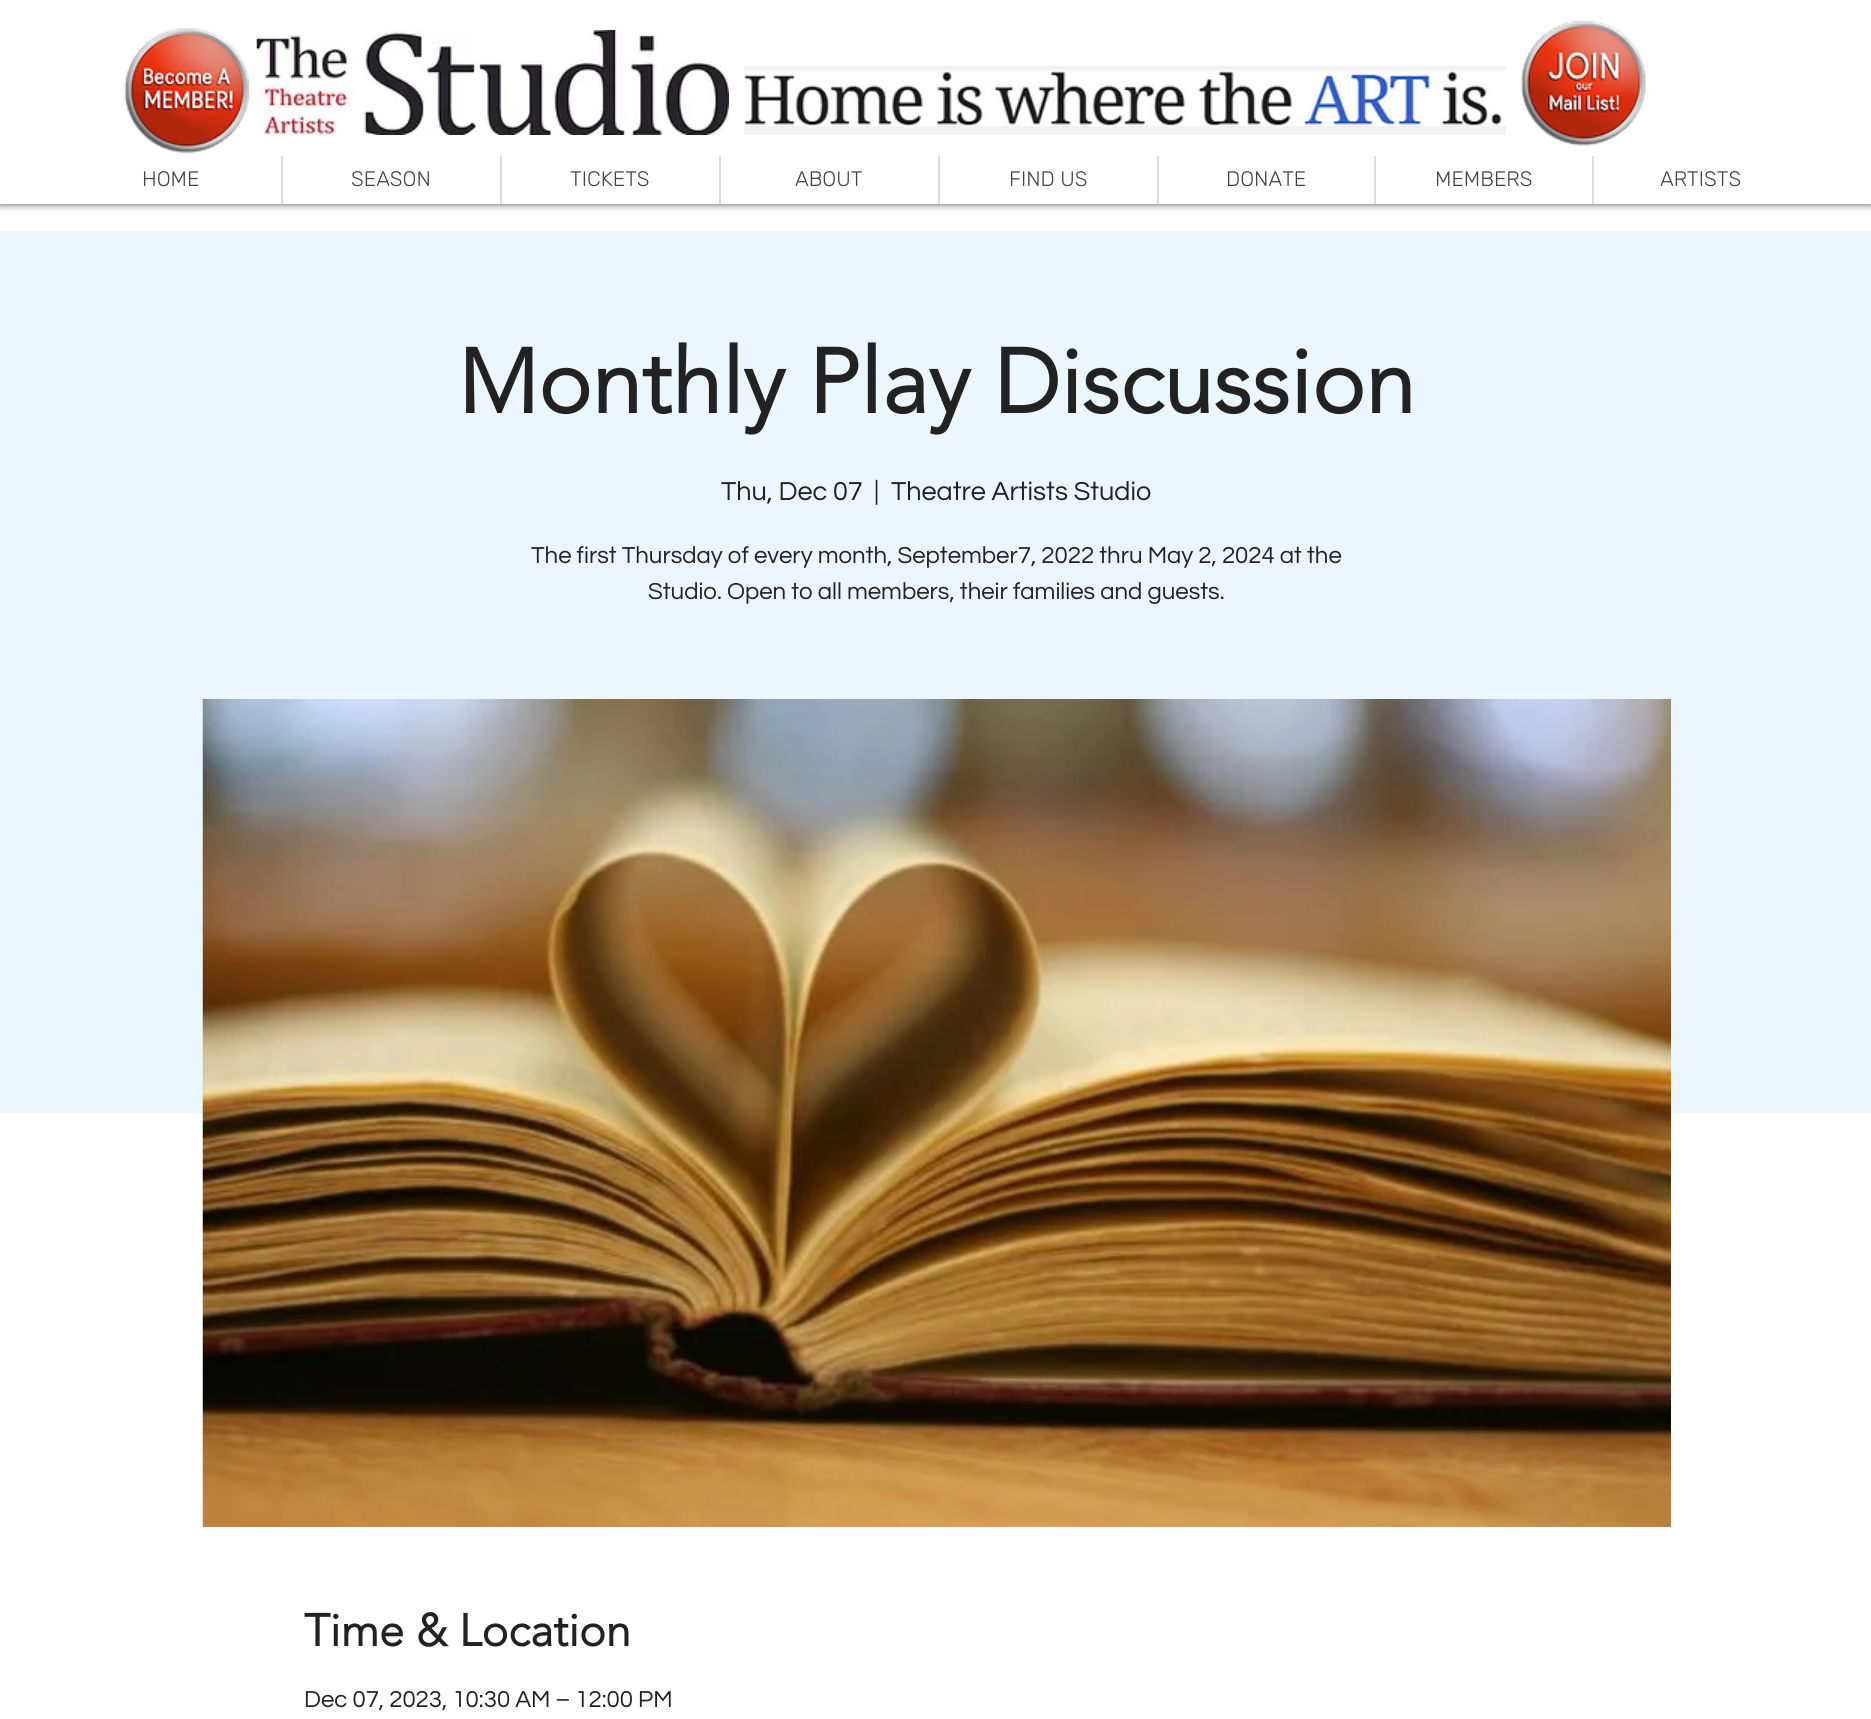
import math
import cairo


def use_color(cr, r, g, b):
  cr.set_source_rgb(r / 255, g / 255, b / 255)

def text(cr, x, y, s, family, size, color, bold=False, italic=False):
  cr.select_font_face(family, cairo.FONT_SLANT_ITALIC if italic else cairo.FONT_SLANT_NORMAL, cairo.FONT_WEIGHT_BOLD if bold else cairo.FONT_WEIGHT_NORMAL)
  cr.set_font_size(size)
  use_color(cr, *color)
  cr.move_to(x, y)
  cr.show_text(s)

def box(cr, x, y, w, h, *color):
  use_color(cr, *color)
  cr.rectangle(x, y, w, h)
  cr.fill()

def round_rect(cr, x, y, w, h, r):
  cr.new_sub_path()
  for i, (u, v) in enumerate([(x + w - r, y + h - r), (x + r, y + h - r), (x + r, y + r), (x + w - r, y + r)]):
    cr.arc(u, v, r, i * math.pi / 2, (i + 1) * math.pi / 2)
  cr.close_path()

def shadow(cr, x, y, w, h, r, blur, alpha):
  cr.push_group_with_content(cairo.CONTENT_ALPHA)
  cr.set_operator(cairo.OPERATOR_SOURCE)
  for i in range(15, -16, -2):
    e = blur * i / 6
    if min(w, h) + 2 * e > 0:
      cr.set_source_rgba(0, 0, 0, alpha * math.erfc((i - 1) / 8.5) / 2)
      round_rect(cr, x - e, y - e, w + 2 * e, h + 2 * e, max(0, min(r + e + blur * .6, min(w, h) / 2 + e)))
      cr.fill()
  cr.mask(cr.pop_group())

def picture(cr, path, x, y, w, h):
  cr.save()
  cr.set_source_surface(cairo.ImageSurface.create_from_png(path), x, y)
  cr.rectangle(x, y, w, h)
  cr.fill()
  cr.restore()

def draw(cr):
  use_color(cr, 255, 255, 255)
  cr.paint()
  cr.save()
  cr.rectangle(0, 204, 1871, 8)
  cr.clip()
  use_color(cr, 0, 0, 0)
  shadow(cr, 0, 0, 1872, 204, 0, 4, 0.7)
  cr.restore()
  picture(cr, "img_01.png", 124, 28, 126, 126)
  picture(cr, "img_02.png", 256, 30, 473, 105)
  picture(cr, "img_03.png", 744, 66, 762, 69)
  picture(cr, "img_04.png", 1521, 20, 125, 126)
  box(cr, 281, 156, 2, 48, 219, 219, 219)
  box(cr, 500, 156, 2, 48, 219, 219, 219)
  box(cr, 719, 156, 2, 48, 219, 219, 219)
  box(cr, 938, 156, 2, 48, 219, 219, 219)
  box(cr, 1157, 156, 2, 48, 219, 219, 219)
  box(cr, 1374, 156, 2, 48, 219, 219, 219)
  box(cr, 1592, 156, 2, 48, 219, 219, 219)
  box(cr, 0, 231, 1871, 882, 236, 246, 254)
  picture(cr, "img_05.png", 202, 699, 1469, 828)
  text(cr, 142, 186, "HOME", "Rubik Light", 21, (68, 68, 68))
  text(cr, 351, 186, "SEASON", "Rubik Light", 21, (68, 68, 68))
  text(cr, 570, 186, "TICKETS", "Rubik Light", 21, (68, 68, 68))
  text(cr, 795, 186, "ABOUT", "Rubik Light", 21, (68, 68, 68))
  text(cr, 1009, 186, "FIND US", "Rubik Light", 21, (68, 68, 68))
  text(cr, 1226, 186, "DONATE", "Rubik Light", 21, (68, 68, 68))
  text(cr, 1435, 186, "MEMBERS", "Rubik Light", 21, (68, 68, 68))
  text(cr, 1660, 186, "ARTISTS", "Rubik Light", 21, (68, 68, 68))
  text(cr, 458, 413, "Monthly Play Discussion", "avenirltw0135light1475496", 90, (34, 34, 34), bold=True)
  text(cr, 721, 500, "Thu, Dec 07", "Questrial", 27, (34, 34, 34))
  text(cr, 874, 500, "|", "Questrial", 27, (34, 34, 34))
  text(cr, 891, 500, "Theatre Artists Studio", "Questrial", 27, (34, 34, 34))
  text(cr, 531, 563, "The first Thursday of every month, September7, 2022 thru May 2, 2024 at the", "Questrial", 24, (34, 34, 34))
  text(cr, 648, 599, "Studio. Open to all members, their families and guests.", "Questrial", 24, (34, 34, 34))
  text(cr, 304, 1646, "Time & Location", "avenirltw0135light1475496", 45, (34, 34, 34), bold=True)
  text(cr, 304, 1707, "Dec 07, 2023, 10:30 AM – 12:00 PM", "Questrial", 24, (34, 34, 34))


surface = cairo.ImageSurface(cairo.FORMAT_RGB24, 1871, 1719)
cr = cairo.Context(surface)
options = cairo.FontOptions()
options.set_hint_metrics(cairo.HINT_METRICS_OFF)
options.set_hint_style(cairo.HINT_STYLE_NONE)
cr.set_font_options(options)
cr.set_miter_limit(4)
draw(cr)
surface.write_to_png("out.png")
